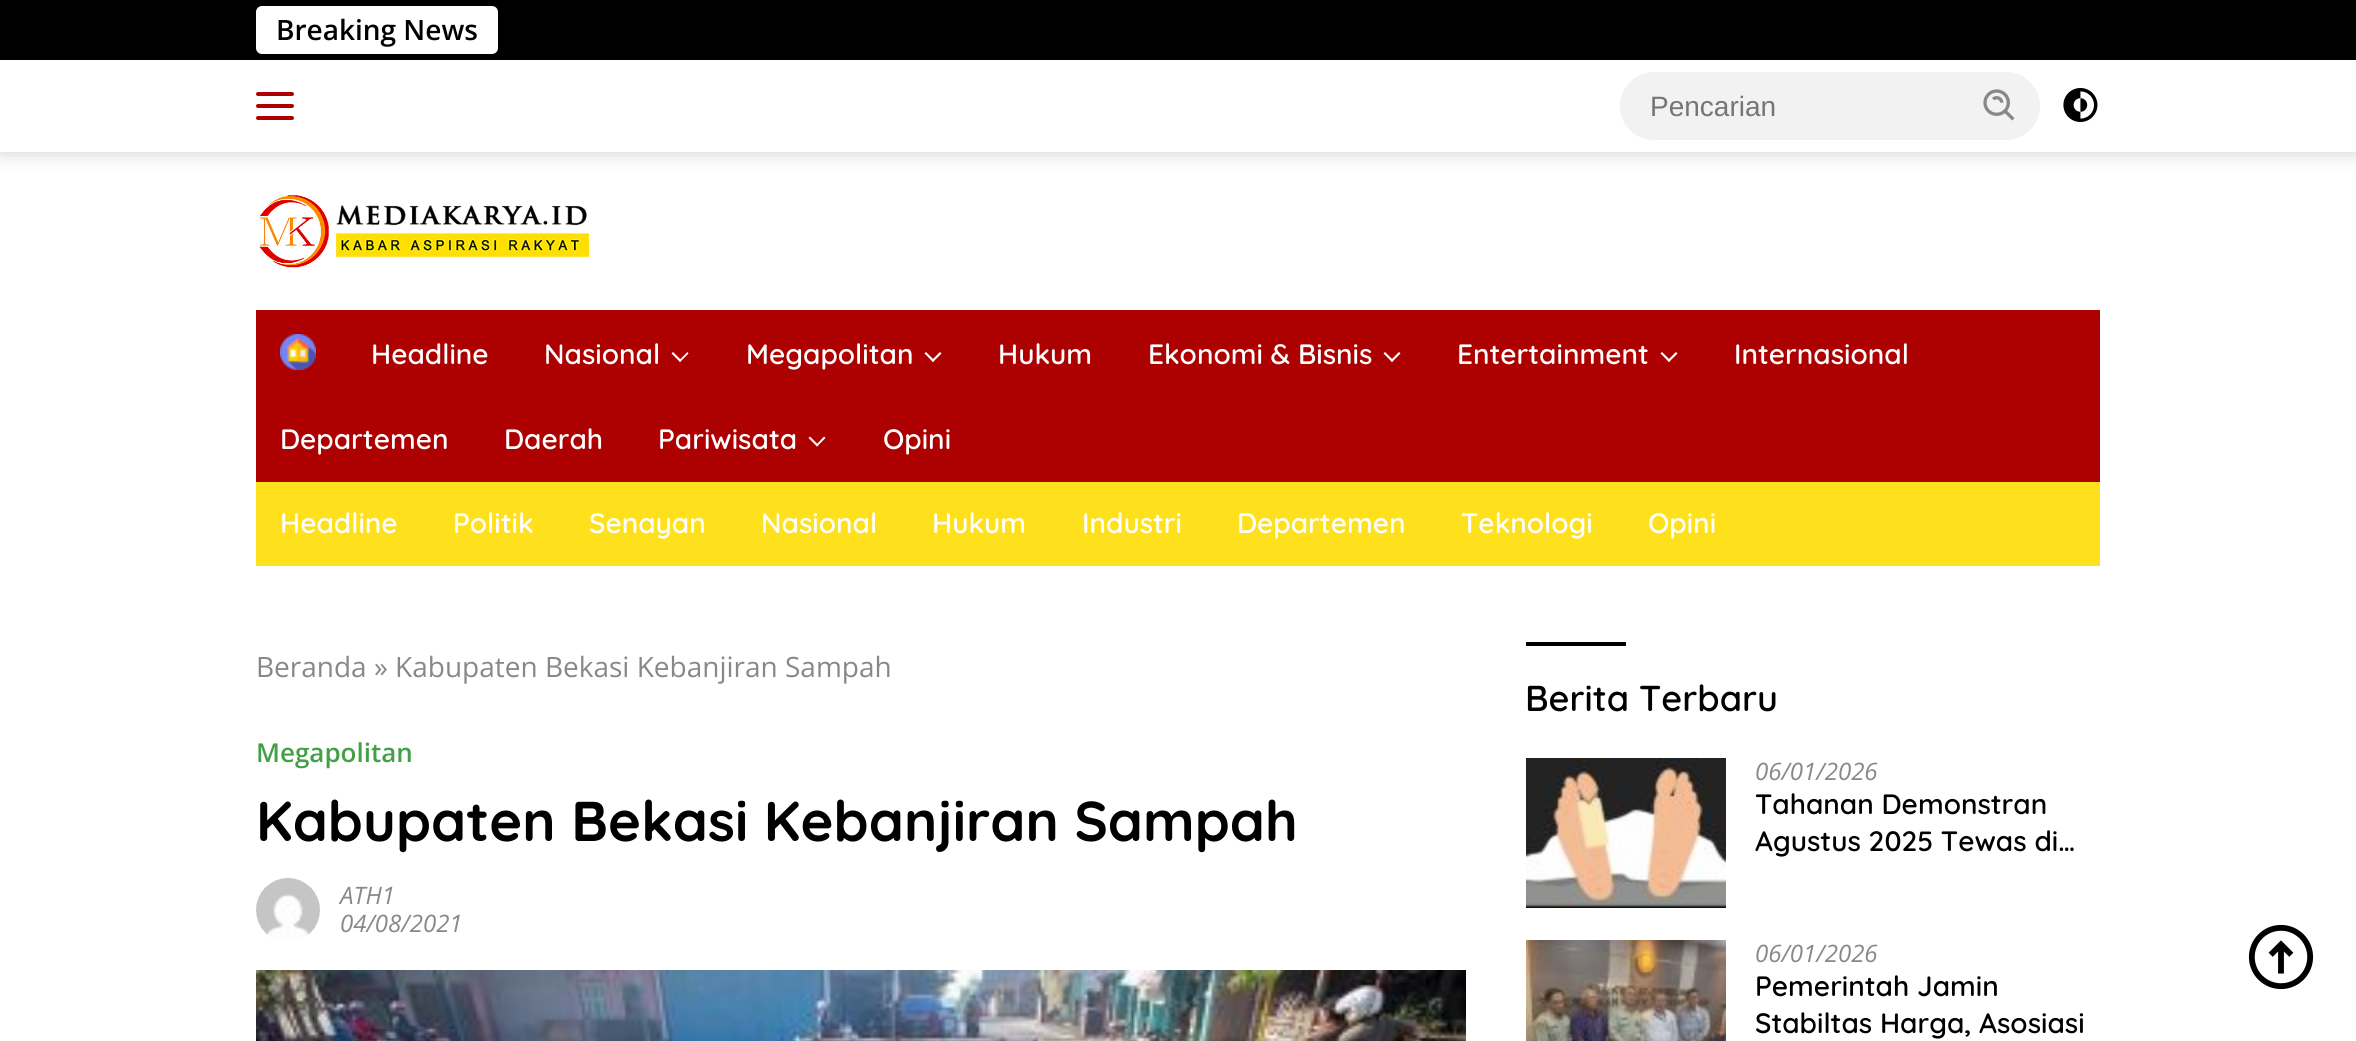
import math
import cairo


def use_color(cr, r, g, b):
  cr.set_source_rgb(r / 255, g / 255, b / 255)

def text(cr, x, y, s, family, size, color, bold=False, italic=False):
  cr.select_font_face(family, cairo.FONT_SLANT_ITALIC if italic else cairo.FONT_SLANT_NORMAL, cairo.FONT_WEIGHT_BOLD if bold else cairo.FONT_WEIGHT_NORMAL)
  cr.set_font_size(size)
  use_color(cr, *color)
  cr.move_to(x, y)
  cr.show_text(s)

def box(cr, x, y, w, h, *color):
  use_color(cr, *color)
  cr.rectangle(x, y, w, h)
  cr.fill()

def round_rect(cr, x, y, w, h, r):
  cr.new_sub_path()
  for i, (u, v) in enumerate([(x + w - r, y + h - r), (x + r, y + h - r), (x + r, y + r), (x + w - r, y + r)]):
    cr.arc(u, v, r, i * math.pi / 2, (i + 1) * math.pi / 2)
  cr.close_path()

def shadow(cr, x, y, w, h, r, blur, alpha):
  cr.push_group_with_content(cairo.CONTENT_ALPHA)
  cr.set_operator(cairo.OPERATOR_SOURCE)
  for i in range(15, -16, -2):
    e = blur * i / 6
    if min(w, h) + 2 * e > 0:
      cr.set_source_rgba(0, 0, 0, alpha * math.erfc((i - 1) / 8.5) / 2)
      round_rect(cr, x - e, y - e, w + 2 * e, h + 2 * e, max(0, min(r + e + blur * .6, min(w, h) / 2 + e)))
      cr.fill()
  cr.mask(cr.pop_group())

def picture(cr, path, x, y, w, h):
  cr.save()
  cr.set_source_surface(cairo.ImageSurface.create_from_png(path), x, y)
  cr.rectangle(x, y, w, h)
  cr.fill()
  cr.restore()

def draw(cr):
  use_color(cr, 255, 255, 255)
  cr.paint()
  use_color(cr, 0, 0, 0)
  shadow(cr, 0, 0, 2356, 152, 0, 10, 0.2)
  box(cr, 0, 60, 2356, 92, 255, 255, 255)
  box(cr, 0, 0, 2356, 60, 0, 0, 0)
  use_color(cr, 255, 255, 255)
  round_rect(cr, 256, 6, 242, 48, 6)
  cr.fill()
  use_color(cr, 173, 0, 0)
  round_rect(cr, 256, 92, 38, 4, 2)
  cr.fill()
  round_rect(cr, 256, 104, 38, 4, 2)
  cr.fill()
  round_rect(cr, 256, 116, 38, 4, 2)
  cr.fill()
  use_color(cr, 242, 242, 242)
  round_rect(cr, 1620, 72, 420, 68, 34)
  cr.fill()
  picture(cr, "img_01.png", 1983, 89, 32, 32)
  picture(cr, "img_02.png", 2063, 88, 35, 34)
  picture(cr, "img_03.png", 259, 195, 331, 73)
  box(cr, 256, 482, 1844, 84, 255, 224, 28)
  box(cr, 256, 310, 1844, 172, 173, 0, 0)
  picture(cr, "img_04.png", 280, 334, 36, 36)
  use_color(cr, 255, 255, 255)
  cr.new_path()
  cr.move_to(687.5, 352)
  cr.line_to(688.5, 353.5)
  cr.line_to(680, 362)
  cr.line_to(679, 360.5)
  cr.close_path()
  cr.fill()
  cr.new_path()
  cr.move_to(673, 352)
  cr.line_to(681.5, 360.5)
  cr.line_to(680, 362)
  cr.line_to(671.5, 353.5)
  cr.close_path()
  cr.fill()
  cr.new_path()
  cr.move_to(940, 352)
  cr.line_to(941.5, 353.5)
  cr.line_to(933, 362)
  cr.line_to(931.5, 360.5)
  cr.close_path()
  cr.fill()
  cr.new_path()
  cr.move_to(926, 352)
  cr.line_to(934.5, 360.5)
  cr.line_to(933, 362)
  cr.line_to(924.5, 353.5)
  cr.close_path()
  cr.fill()
  cr.new_path()
  cr.move_to(1399, 352)
  cr.line_to(1400.5, 353.5)
  cr.line_to(1392, 362)
  cr.line_to(1390.5, 360.5)
  cr.close_path()
  cr.fill()
  cr.new_path()
  cr.move_to(1385, 352)
  cr.line_to(1393.5, 360.5)
  cr.line_to(1392, 362)
  cr.line_to(1383.5, 353.5)
  cr.close_path()
  cr.fill()
  cr.new_path()
  cr.move_to(1676, 352)
  cr.line_to(1677.5, 353.5)
  cr.line_to(1669, 362)
  cr.line_to(1667.5, 360.5)
  cr.close_path()
  cr.fill()
  cr.new_path()
  cr.move_to(1662, 352)
  cr.line_to(1670.5, 360.5)
  cr.line_to(1669, 362)
  cr.line_to(1660.5, 353.5)
  cr.close_path()
  cr.fill()
  cr.new_path()
  cr.move_to(824, 436.5)
  cr.line_to(825.5, 438)
  cr.line_to(817, 446.5)
  cr.line_to(816, 445)
  cr.close_path()
  cr.fill()
  cr.new_path()
  cr.move_to(810, 436.5)
  cr.line_to(818.5, 445)
  cr.line_to(817, 446.5)
  cr.line_to(808.5, 438)
  cr.close_path()
  cr.fill()
  picture(cr, "img_05.png", 256, 878, 64, 64)
  picture(cr, "img_06.png", 256, 970, 1210, 71)
  box(cr, 1526, 642, 100, 4, 0, 0, 0)
  picture(cr, "img_07.png", 1526, 758, 200, 150)
  picture(cr, "img_08.png", 1526, 940, 200, 101)
  picture(cr, "img_09.png", 2248, 924, 66, 66)
  text(cr, 276, 40, "Breaking News", "Open Sans SemiBold", 28, (0, 0, 0))
  text(cr, 1650, 116, "Pencarian", "Liberation Sans", 28, (117, 117, 117))
  text(cr, 371, 364, "Headline", "Quicksand SemiBold", 28, (255, 255, 255))
  text(cr, 544, 364, "Nasional", "Quicksand SemiBold", 28, (255, 255, 255))
  text(cr, 746, 364, "Megapolitan", "Quicksand SemiBold", 28, (255, 255, 255))
  text(cr, 998, 364, "Hukum", "Quicksand SemiBold", 28, (255, 255, 255))
  text(cr, 1148, 364, "Ekonomi & Bisnis", "Quicksand SemiBold", 28, (255, 255, 255))
  text(cr, 1457, 364, "Entertainment", "Quicksand SemiBold", 28, (255, 255, 255))
  text(cr, 1734, 364, "Internasional", "Quicksand SemiBold", 28, (255, 255, 255))
  text(cr, 280, 449, "Departemen", "Quicksand SemiBold", 28, (255, 255, 255))
  text(cr, 504, 449, "Daerah", "Quicksand SemiBold", 28, (255, 255, 255))
  text(cr, 658, 449, "Pariwisata", "Quicksand SemiBold", 28, (255, 255, 255))
  text(cr, 883, 449, "Opini", "Quicksand SemiBold", 28, (255, 255, 255))
  text(cr, 280, 533, "Headline", "Quicksand SemiBold", 28, (255, 255, 255))
  text(cr, 453, 533, "Politik", "Quicksand SemiBold", 28, (255, 255, 255))
  text(cr, 589, 533, "Senayan", "Quicksand SemiBold", 28, (255, 255, 255))
  text(cr, 761, 533, "Nasional", "Quicksand SemiBold", 28, (255, 255, 255))
  text(cr, 932, 533, "Hukum", "Quicksand SemiBold", 28, (255, 255, 255))
  text(cr, 1082, 533, "Industri", "Quicksand SemiBold", 28, (255, 255, 255))
  text(cr, 1237, 533, "Departemen", "Quicksand SemiBold", 28, (255, 255, 255))
  text(cr, 1461, 533, "Teknologi", "Quicksand SemiBold", 28, (255, 255, 255))
  text(cr, 1648, 533, "Opini", "Quicksand SemiBold", 28, (255, 255, 255))
  text(cr, 256, 677, "Beranda » Kabupaten Bekasi Kebanjiran Sampah", "Open Sans", 28, (136, 136, 136))
  text(cr, 256, 762, "Megapolitan", "Open Sans SemiBold", 26, (67, 160, 71))
  text(cr, 256, 841, "Kabupaten Bekasi Kebanjiran Sampah", "Quicksand", 56, (0, 0, 0), bold=True)
  text(cr, 340, 904, "ATH1", "Open Sans", 24, (136, 136, 136), italic=True)
  text(cr, 340, 932, "04/08/2021", "Open Sans", 24, (136, 136, 136), italic=True)
  text(cr, 1525, 711, "Berita Terbaru", "Quicksand SemiBold", 36, (0, 0, 0))
  text(cr, 1755, 780, "06/01/2026", "Open Sans", 24, (136, 136, 136), italic=True)
  text(cr, 1755, 814, "Tahanan Demonstran", "Quicksand SemiBold", 28, (0, 0, 0))
  text(cr, 1755, 851, "Agustus 2025 Tewas di…", "Quicksand SemiBold", 28, (0, 0, 0))
  text(cr, 1755, 962, "06/01/2026", "Open Sans", 24, (136, 136, 136), italic=True)
  text(cr, 1755, 996, "Pemerintah Jamin", "Quicksand SemiBold", 28, (0, 0, 0))
  text(cr, 1755, 1033, "Stabiltas Harga, Asosiasi", "Quicksand SemiBold", 28, (0, 0, 0))


surface = cairo.ImageSurface(cairo.FORMAT_RGB24, 2356, 1041)
cr = cairo.Context(surface)
options = cairo.FontOptions()
options.set_hint_metrics(cairo.HINT_METRICS_OFF)
options.set_hint_style(cairo.HINT_STYLE_NONE)
cr.set_font_options(options)
cr.set_miter_limit(4)
draw(cr)
surface.write_to_png("out.png")
